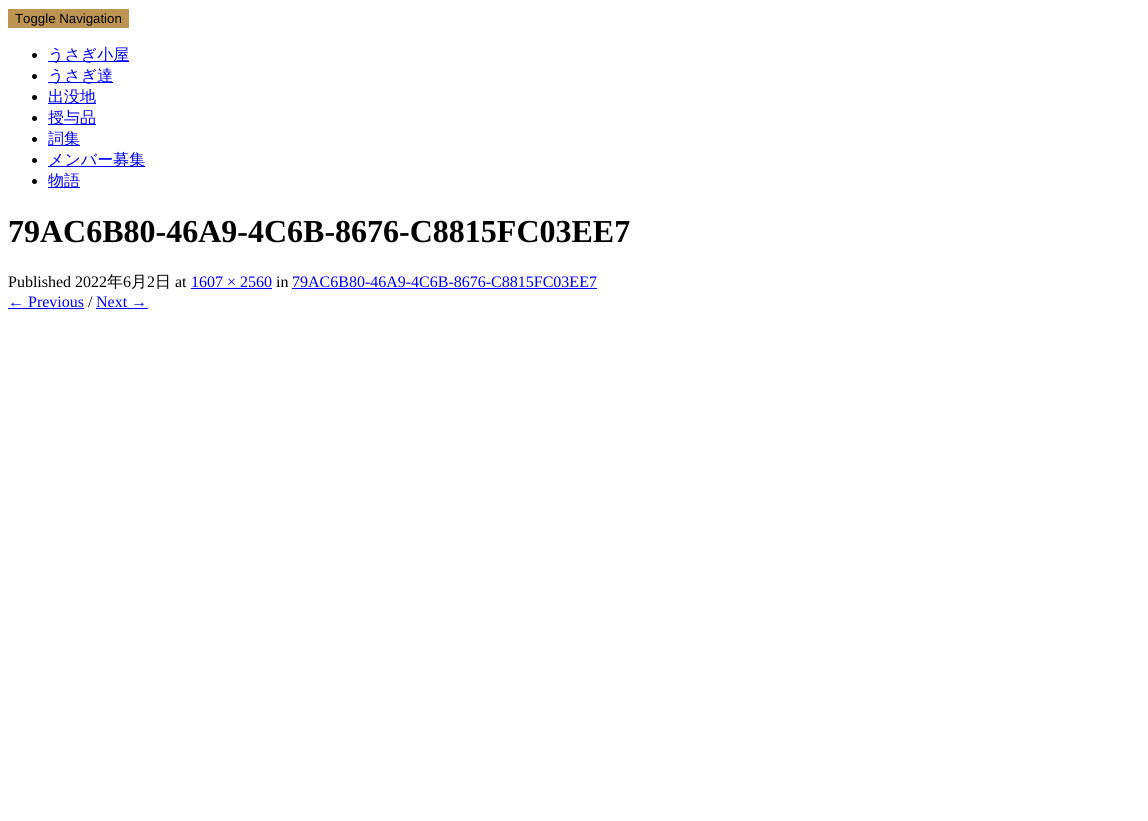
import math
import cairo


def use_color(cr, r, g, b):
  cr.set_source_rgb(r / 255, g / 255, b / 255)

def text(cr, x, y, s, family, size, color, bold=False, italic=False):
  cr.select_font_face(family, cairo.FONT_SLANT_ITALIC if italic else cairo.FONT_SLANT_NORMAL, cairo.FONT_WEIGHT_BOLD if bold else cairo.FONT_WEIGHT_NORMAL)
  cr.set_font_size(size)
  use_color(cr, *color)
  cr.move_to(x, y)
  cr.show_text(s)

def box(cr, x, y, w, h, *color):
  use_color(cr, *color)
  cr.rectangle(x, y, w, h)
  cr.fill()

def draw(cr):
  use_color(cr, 255, 255, 255)
  cr.paint()
  box(cr, 8, 9, 121, 19, 189, 148, 82)
  use_color(cr, 0, 0, 0)
  cr.arc(34.5, 55.5, 2.5, 0, 2 * math.pi)
  cr.fill()
  box(cr, 48, 61, 81, 1, 0, 0, 238)
  use_color(cr, 0, 0, 0)
  cr.arc(34.5, 76.5, 2.5, 0, 2 * math.pi)
  cr.fill()
  box(cr, 48, 82, 65, 1, 0, 0, 238)
  use_color(cr, 0, 0, 0)
  cr.arc(34.5, 97.5, 2.5, 0, 2 * math.pi)
  cr.fill()
  box(cr, 48, 103, 48, 1, 0, 0, 238)
  use_color(cr, 0, 0, 0)
  cr.arc(34.5, 118.5, 2.5, 0, 2 * math.pi)
  cr.fill()
  box(cr, 48, 124, 48, 1, 0, 0, 238)
  use_color(cr, 0, 0, 0)
  cr.arc(34.5, 139.5, 2.5, 0, 2 * math.pi)
  cr.fill()
  box(cr, 48, 145, 32, 1, 0, 0, 238)
  use_color(cr, 0, 0, 0)
  cr.arc(34.5, 160.5, 2.5, 0, 2 * math.pi)
  cr.fill()
  box(cr, 48, 166, 97, 1, 0, 0, 238)
  use_color(cr, 0, 0, 0)
  cr.arc(34.5, 181.5, 2.5, 0, 2 * math.pi)
  cr.fill()
  box(cr, 48, 187, 32, 1, 0, 0, 238)
  box(cr, 191, 288, 81, 1, 0, 0, 238)
  box(cr, 292, 288, 305, 1, 0, 0, 238)
  box(cr, 8, 308, 76, 1, 0, 0, 238)
  box(cr, 96, 308, 52, 1, 0, 0, 238)
  text(cr, 15, 23, "Toggle Navigation", "Liberation Sans", 13.25, (0, 0, 0))
  text(cr, 48, 60, "うさぎ小屋", "WenQuanYi Zen Hei Medium", 16, (0, 0, 238))
  text(cr, 48, 81, "うさぎ達", "WenQuanYi Zen Hei Medium", 16, (0, 0, 238))
  text(cr, 48, 102, "出没地", "WenQuanYi Zen Hei Medium", 16, (0, 0, 238))
  text(cr, 48, 123, "授与品", "WenQuanYi Zen Hei Medium", 16, (0, 0, 238))
  text(cr, 48, 144, "詞集", "WenQuanYi Zen Hei Medium", 16, (0, 0, 238))
  text(cr, 48, 165, "メンバー募集", "WenQuanYi Zen Hei Medium", 16, (0, 0, 238))
  text(cr, 48, 186, "物語", "WenQuanYi Zen Hei Medium", 16, (0, 0, 238))
  text(cr, 8, 242, "79AC6B80-46A9-4C6B-8676-C8815FC03EE7", "Liberation Serif", 32, (0, 0, 0), bold=True)
  text(cr, 8, 287, "Published 2022", "Liberation Serif", 16, (0, 0, 0))
  text(cr, 107, 287, "年", "WenQuanYi Zen Hei Medium", 16, (0, 0, 0))
  text(cr, 123, 287, "6", "Liberation Serif", 16, (0, 0, 0))
  text(cr, 131, 287, "月", "WenQuanYi Zen Hei Medium", 16, (0, 0, 0))
  text(cr, 147, 287, "2", "Liberation Serif", 16, (0, 0, 0))
  text(cr, 155, 287, "日", "WenQuanYi Zen Hei Medium", 16, (0, 0, 0))
  text(cr, 175, 287, "at", "Liberation Serif", 16, (0, 0, 0))
  text(cr, 191, 287, "1607 × 2560", "Liberation Serif", 16, (0, 0, 238))
  text(cr, 276, 287, "in", "Liberation Serif", 16, (0, 0, 0))
  text(cr, 292, 287, "79AC6B80-46A9-4C6B-8676-C8815FC03EE7", "Liberation Serif", 16, (0, 0, 238))
  text(cr, 8, 307, "← Previous", "Liberation Serif", 16, (0, 0, 238))
  text(cr, 88, 307, "/", "Liberation Serif", 16, (0, 0, 0))
  text(cr, 96, 307, "Next →", "Liberation Serif", 16, (0, 0, 238))


surface = cairo.ImageSurface(cairo.FORMAT_RGB24, 1148, 821)
cr = cairo.Context(surface)
options = cairo.FontOptions()
options.set_hint_metrics(cairo.HINT_METRICS_OFF)
options.set_hint_style(cairo.HINT_STYLE_NONE)
cr.set_font_options(options)
cr.set_miter_limit(4)
draw(cr)
surface.write_to_png("out.png")
